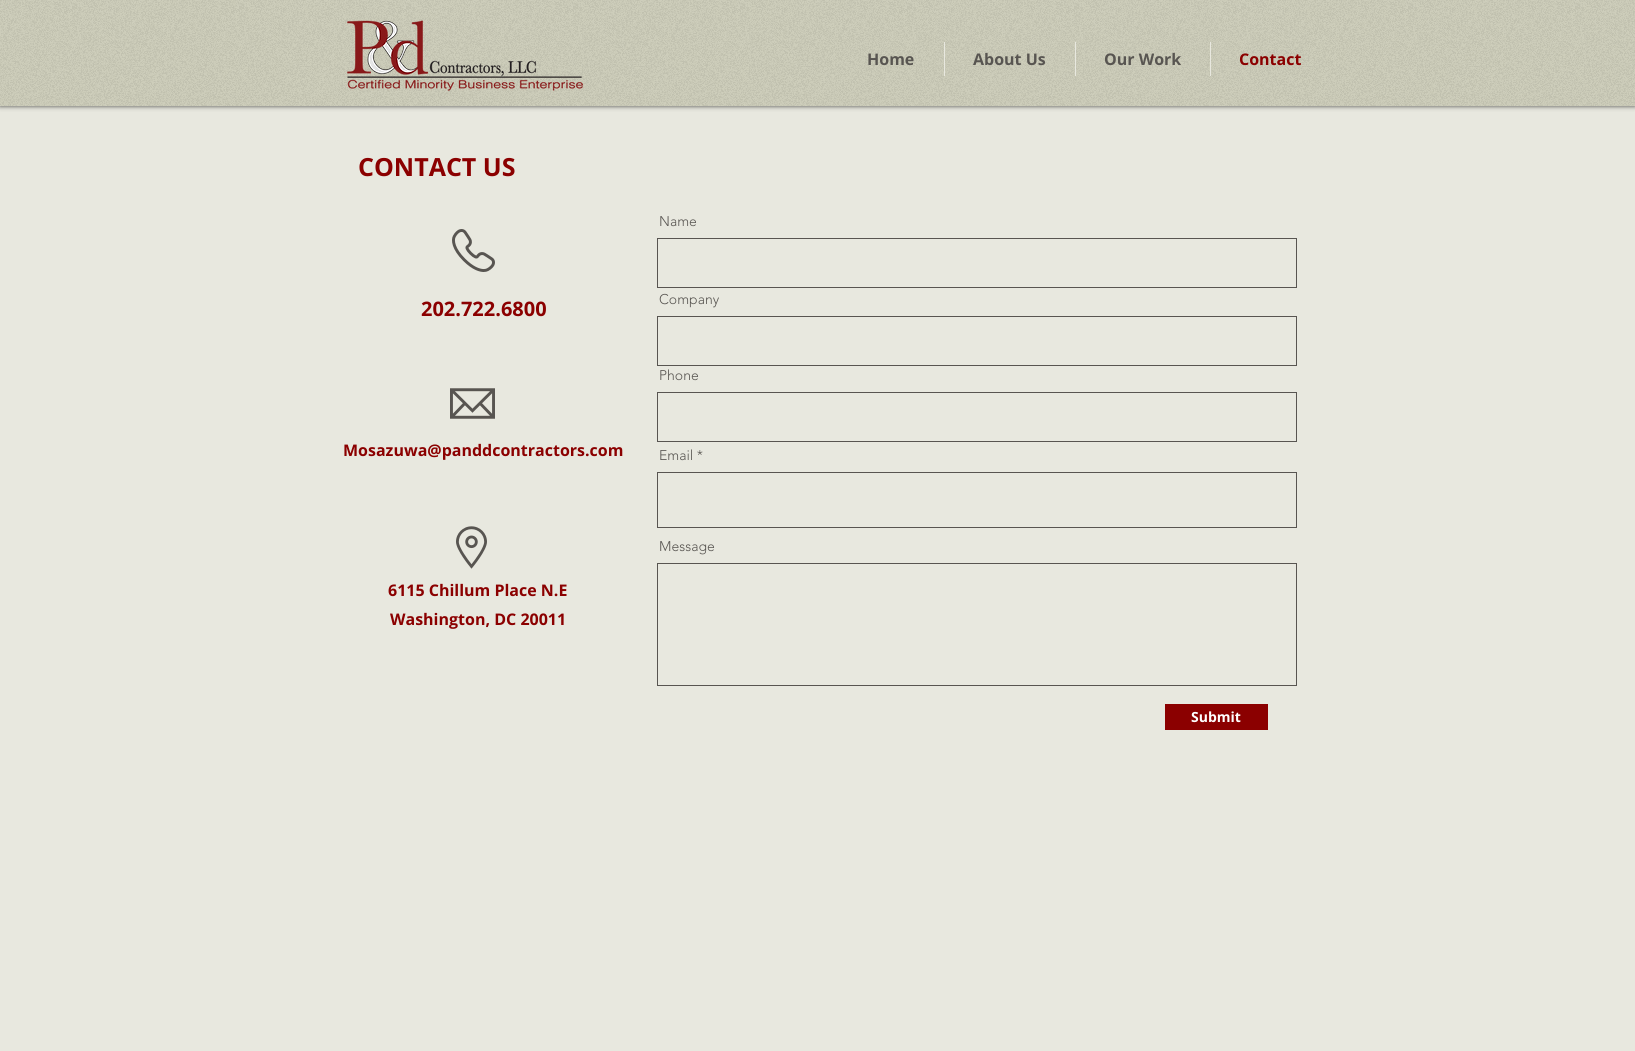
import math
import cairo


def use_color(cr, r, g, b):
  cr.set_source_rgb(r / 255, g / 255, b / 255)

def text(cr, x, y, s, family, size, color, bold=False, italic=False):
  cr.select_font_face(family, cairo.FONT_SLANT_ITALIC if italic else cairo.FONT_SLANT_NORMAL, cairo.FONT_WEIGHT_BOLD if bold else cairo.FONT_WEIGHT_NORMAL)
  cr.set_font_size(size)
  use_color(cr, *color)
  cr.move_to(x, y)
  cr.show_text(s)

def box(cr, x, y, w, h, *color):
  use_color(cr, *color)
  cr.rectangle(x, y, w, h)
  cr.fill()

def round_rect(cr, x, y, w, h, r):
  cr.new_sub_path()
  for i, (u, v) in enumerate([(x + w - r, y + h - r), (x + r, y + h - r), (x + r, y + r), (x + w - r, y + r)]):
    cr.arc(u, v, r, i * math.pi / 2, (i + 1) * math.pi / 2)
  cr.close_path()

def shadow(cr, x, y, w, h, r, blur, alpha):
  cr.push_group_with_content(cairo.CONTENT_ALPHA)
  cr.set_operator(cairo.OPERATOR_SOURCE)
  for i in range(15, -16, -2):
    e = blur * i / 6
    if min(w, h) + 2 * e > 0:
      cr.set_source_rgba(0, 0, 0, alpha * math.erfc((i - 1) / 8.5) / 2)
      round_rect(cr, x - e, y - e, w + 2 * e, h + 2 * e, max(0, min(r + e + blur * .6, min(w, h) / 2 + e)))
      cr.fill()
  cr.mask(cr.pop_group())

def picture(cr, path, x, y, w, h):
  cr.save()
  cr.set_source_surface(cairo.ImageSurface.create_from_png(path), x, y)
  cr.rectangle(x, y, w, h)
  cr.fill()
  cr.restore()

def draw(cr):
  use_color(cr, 232, 232, 223)
  cr.paint()
  use_color(cr, 0, 0, 0)
  shadow(cr, 0, 0, 1635, 106, 0, 2.5, 0.7)
  box(cr, 0, 0, 1635, 106, 205, 205, 186)
  picture(cr, "img_01.png", 0, 0, 1635, 106)
  picture(cr, "img_02.png", 347, 20, 237, 71)
  box(cr, 944, 42, 1, 34, 232, 232, 223)
  box(cr, 1075, 42, 1, 34, 232, 232, 223)
  box(cr, 1210, 42, 1, 34, 232, 232, 223)
  picture(cr, "img_03.png", 452, 229, 43, 43)
  picture(cr, "img_04.png", 450, 388, 45, 31)
  picture(cr, "img_05.png", 456, 526, 31, 43)
  cr.rectangle(657.5, 238.5, 639, 49)
  use_color(cr, 88, 85, 81)
  cr.set_line_width(1)
  cr.stroke()
  cr.rectangle(657.5, 316.5, 639, 49)
  cr.stroke()
  cr.rectangle(657.5, 392.5, 639, 49)
  cr.stroke()
  cr.rectangle(657.5, 472.5, 639, 55)
  cr.stroke()
  cr.rectangle(657.5, 563.5, 639, 122)
  cr.stroke()
  box(cr, 1165, 704, 103, 26, 139, 0, 0)
  text(cr, 867, 65, "Home", "Open Sans", 16, (88, 85, 81), bold=True)
  text(cr, 973, 65, "About Us", "Open Sans", 16, (88, 85, 81), bold=True)
  text(cr, 1104, 65, "Our Work", "Open Sans", 16, (88, 85, 81), bold=True)
  text(cr, 1239, 65, "Contact", "Open Sans", 16, (139, 0, 0), bold=True)
  text(cr, 358, 176, "CONTACT US", "Open Sans", 25, (139, 0, 0), bold=True)
  text(cr, 421, 316, "202.722.6800", "Open Sans", 20, (139, 0, 0), bold=True)
  text(cr, 343, 456, "Mosazuwa@panddcontractors.com", "Open Sans", 16, (139, 0, 0), bold=True)
  text(cr, 388, 596, "6115 Chillum Place N.E", "Open Sans", 16, (139, 0, 0), bold=True)
  text(cr, 390, 625, "Washington, DC 20011", "Open Sans", 16, (139, 0, 0), bold=True)
  text(cr, 659, 226, "Name", "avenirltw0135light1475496 Light", 14, (88, 85, 81))
  text(cr, 659, 304, "Company", "avenirltw0135light1475496 Light", 14, (88, 85, 81))
  text(cr, 659, 380, "Phone", "avenirltw0135light1475496 Light", 14, (88, 85, 81))
  text(cr, 659, 460, "Email *", "avenirltw0135light1475496 Light", 14, (88, 85, 81))
  text(cr, 659, 551, "Message", "avenirltw0135light1475496 Light", 14, (88, 85, 81))
  text(cr, 1191, 722, "Submit", "Open Sans", 14, (255, 255, 255), bold=True)


surface = cairo.ImageSurface(cairo.FORMAT_RGB24, 1635, 1051)
cr = cairo.Context(surface)
options = cairo.FontOptions()
options.set_hint_metrics(cairo.HINT_METRICS_OFF)
options.set_hint_style(cairo.HINT_STYLE_NONE)
cr.set_font_options(options)
cr.set_miter_limit(4)
draw(cr)
surface.write_to_png("out.png")
